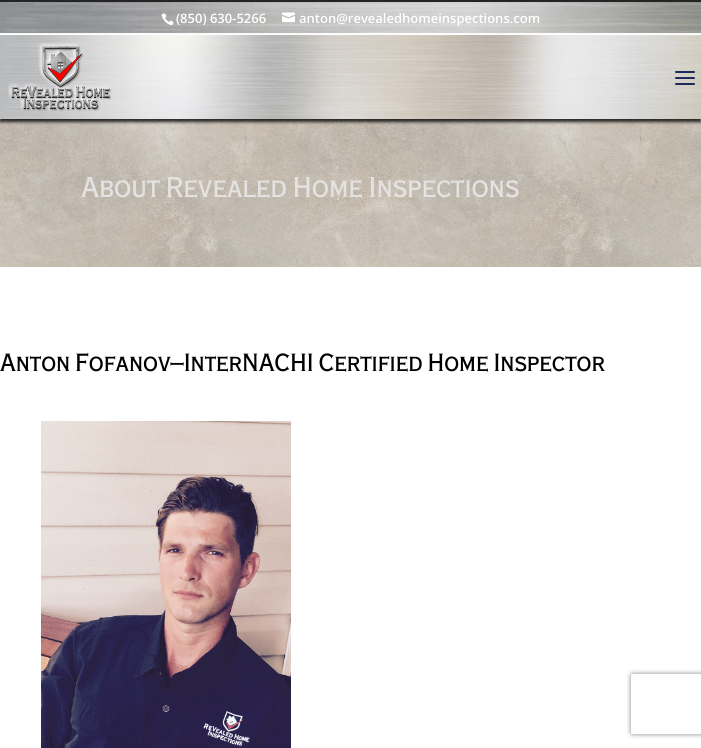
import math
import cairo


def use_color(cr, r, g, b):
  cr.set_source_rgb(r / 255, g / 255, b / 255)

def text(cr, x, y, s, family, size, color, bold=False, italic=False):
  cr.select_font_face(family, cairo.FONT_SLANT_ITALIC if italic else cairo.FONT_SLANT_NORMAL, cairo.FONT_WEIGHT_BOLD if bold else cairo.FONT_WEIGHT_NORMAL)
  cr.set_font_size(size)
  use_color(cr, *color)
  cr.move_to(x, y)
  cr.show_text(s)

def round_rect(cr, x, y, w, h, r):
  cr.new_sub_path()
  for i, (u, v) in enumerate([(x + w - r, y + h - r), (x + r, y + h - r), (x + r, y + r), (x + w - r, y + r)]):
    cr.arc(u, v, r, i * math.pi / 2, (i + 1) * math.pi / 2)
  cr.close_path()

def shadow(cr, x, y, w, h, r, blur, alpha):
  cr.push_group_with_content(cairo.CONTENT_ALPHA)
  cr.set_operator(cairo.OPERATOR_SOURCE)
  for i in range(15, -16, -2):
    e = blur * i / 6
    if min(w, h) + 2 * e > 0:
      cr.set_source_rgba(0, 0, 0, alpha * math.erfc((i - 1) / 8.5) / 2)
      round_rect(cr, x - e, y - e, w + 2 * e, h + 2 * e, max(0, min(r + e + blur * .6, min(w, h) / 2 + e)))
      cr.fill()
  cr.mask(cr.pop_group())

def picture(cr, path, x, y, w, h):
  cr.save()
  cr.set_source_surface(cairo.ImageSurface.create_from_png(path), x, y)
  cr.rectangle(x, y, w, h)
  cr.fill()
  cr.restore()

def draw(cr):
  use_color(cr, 255, 255, 255)
  cr.paint()
  picture(cr, "img_07.png", 0, 119, 701, 148)
  use_color(cr, 0, 0, 0)
  shadow(cr, 0, 38, 701, 84, 0, 1.5, 0.8)
  picture(cr, "img_01.png", 0, 0, 701, 35)
  picture(cr, "img_02.png", 161, 13, 13, 13)
  picture(cr, "img_03.png", 282, 12, 13, 11)
  picture(cr, "img_04.png", 0, 35, 701, 84)
  picture(cr, "img_05.png", 8, 42, 104, 69)
  picture(cr, "img_06.png", 675, 71, 20, 14)
  picture(cr, "img_08.png", 41, 421, 250, 327)
  cr.save()
  cr.set_fill_rule(cairo.FILL_RULE_EVEN_ODD)
  cr.new_path()
  cr.move_to(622, 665)
  cr.line_to(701, 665)
  cr.line_to(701, 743)
  cr.line_to(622, 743)
  cr.close_path()
  cr.move_to(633, 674)
  cr.line_to(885, 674)
  cr.curve_to(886, 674, 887, 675, 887, 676)
  cr.line_to(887, 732)
  cr.curve_to(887, 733, 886, 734, 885, 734)
  cr.line_to(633, 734)
  cr.curve_to(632, 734, 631, 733, 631, 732)
  cr.line_to(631, 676)
  cr.curve_to(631, 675, 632, 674, 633, 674)
  cr.close_path()
  cr.clip()
  use_color(cr, 128, 128, 128)
  shadow(cr, 631, 674, 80, 60, 2, 2.5, 1)
  cr.restore()
  text(cr, 176, 23, "(850) 630-5266", "Open Sans SemiBold", 13, (255, 255, 255))
  text(cr, 299, 23, "anton@revealedhomeinspections.com", "Open Sans SemiBold", 13, (255, 255, 255))
  text(cr, 81, 197, "About Revealed Home Inspections", "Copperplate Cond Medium", 30, (228, 227, 225))
  text(cr, 0, 371, "Anton Fofanov—InterNACHI Certified Home Inspector", "Copperplate Cond Medium", 26, (0, 0, 0))


surface = cairo.ImageSurface(cairo.FORMAT_RGB24, 701, 748)
cr = cairo.Context(surface)
options = cairo.FontOptions()
options.set_hint_metrics(cairo.HINT_METRICS_OFF)
options.set_hint_style(cairo.HINT_STYLE_NONE)
cr.set_font_options(options)
cr.set_miter_limit(4)
draw(cr)
surface.write_to_png("out.png")
